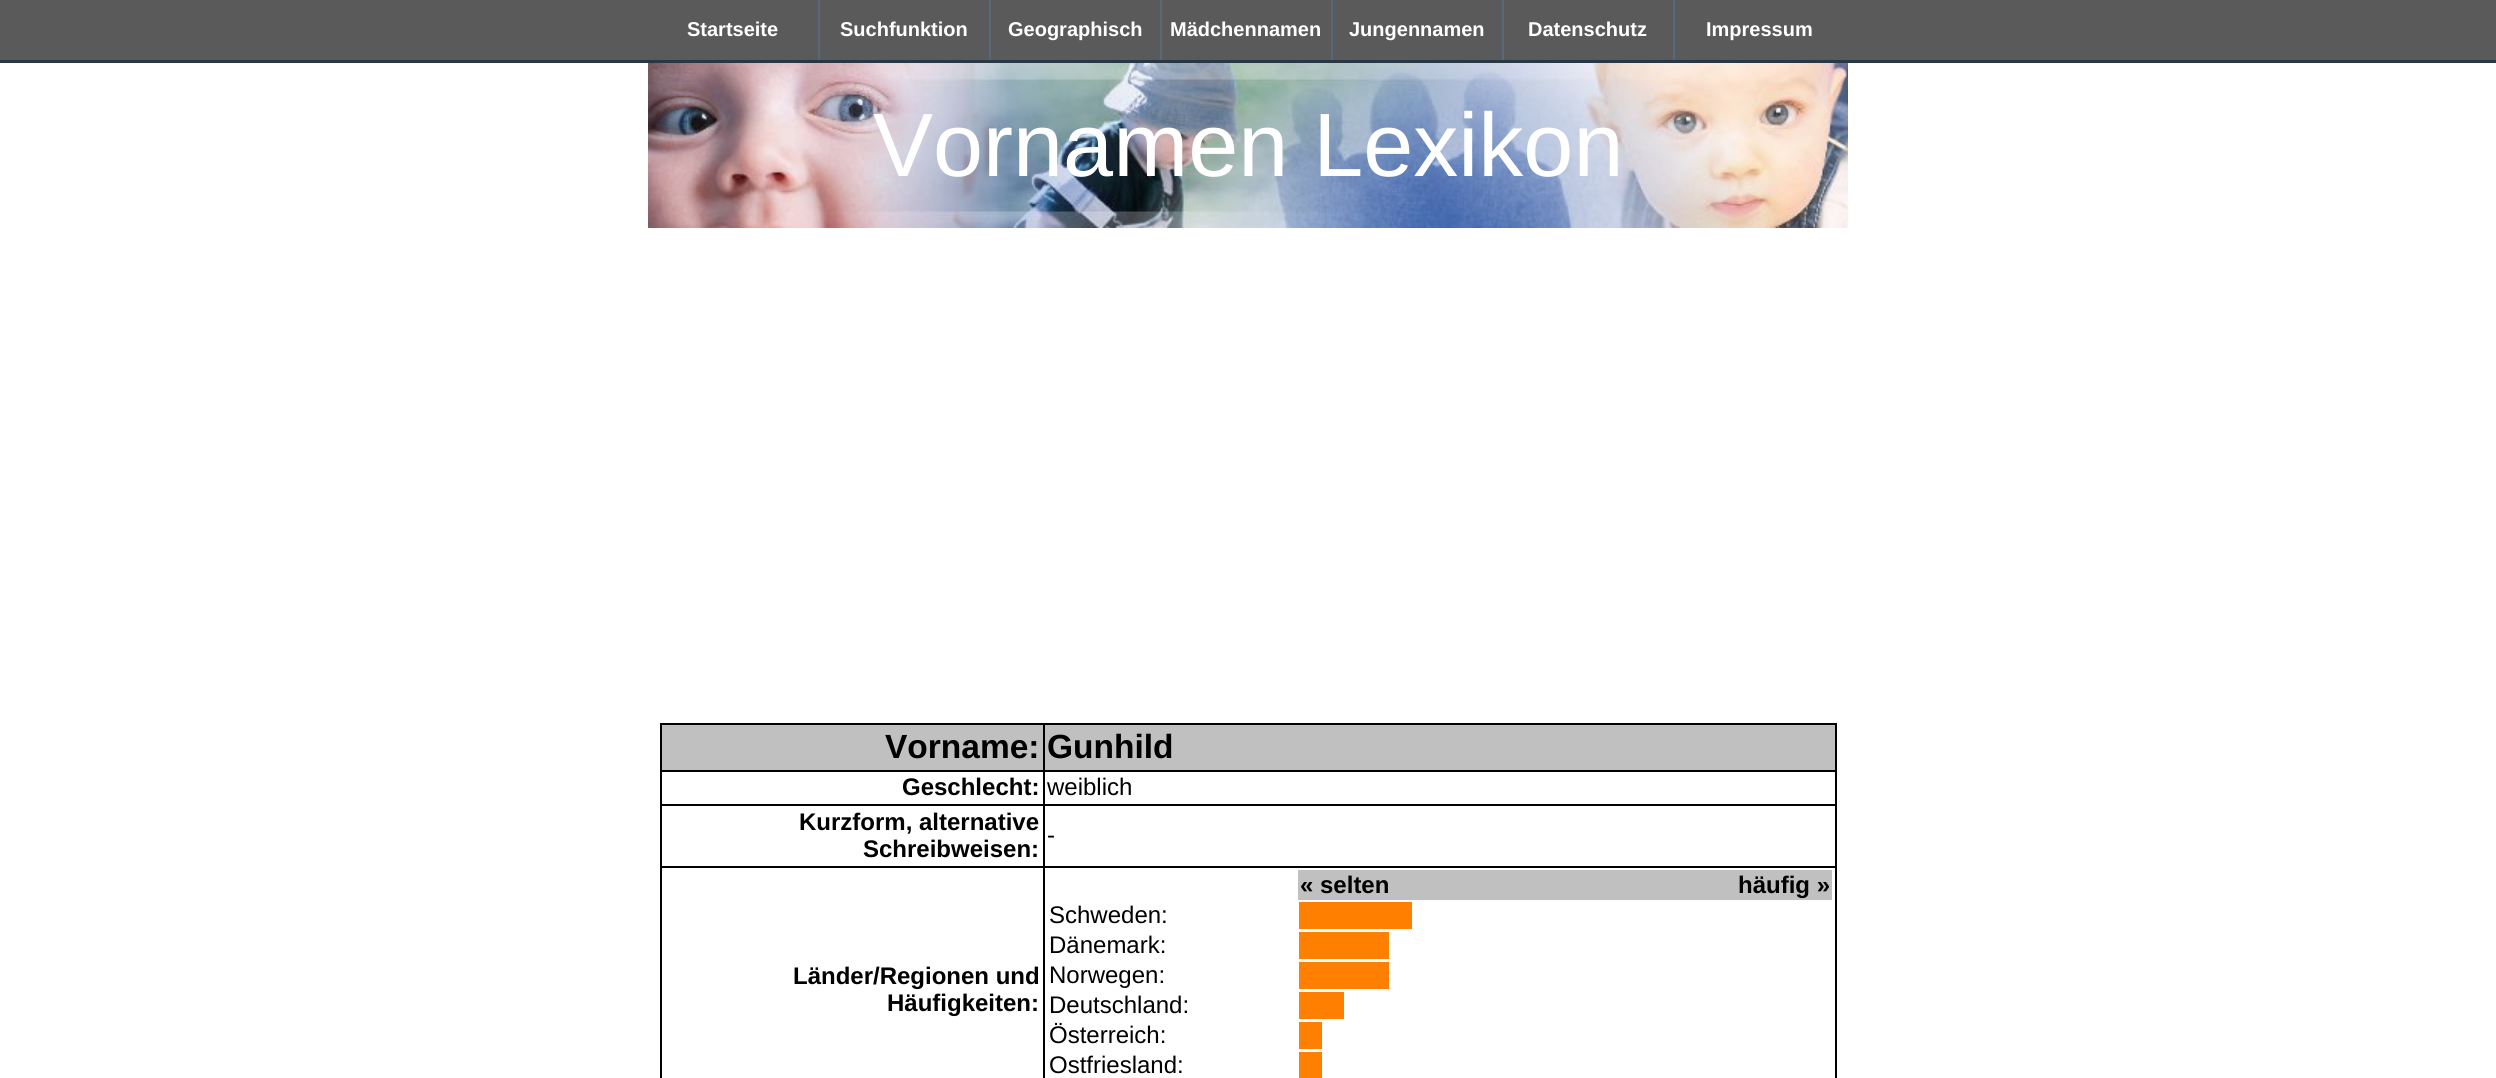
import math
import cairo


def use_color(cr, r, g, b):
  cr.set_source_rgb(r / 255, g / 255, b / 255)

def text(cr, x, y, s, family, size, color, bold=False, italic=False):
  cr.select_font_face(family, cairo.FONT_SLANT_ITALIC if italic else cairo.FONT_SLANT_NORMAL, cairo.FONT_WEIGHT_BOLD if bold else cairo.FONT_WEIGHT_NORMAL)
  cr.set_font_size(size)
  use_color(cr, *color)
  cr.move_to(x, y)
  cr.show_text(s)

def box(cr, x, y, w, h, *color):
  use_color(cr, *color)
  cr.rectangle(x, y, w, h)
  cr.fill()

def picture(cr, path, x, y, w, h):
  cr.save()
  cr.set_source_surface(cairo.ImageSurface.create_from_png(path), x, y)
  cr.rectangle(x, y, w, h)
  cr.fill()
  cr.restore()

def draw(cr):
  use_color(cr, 255, 255, 255)
  cr.paint()
  box(cr, 0, 0, 2496, 60, 90, 90, 90)
  box(cr, 0, 60, 2496, 3, 40, 55, 68)
  box(cr, 818, 0, 2, 60, 87, 105, 121)
  box(cr, 989, 0, 2, 60, 87, 105, 121)
  box(cr, 1160, 0, 2, 60, 87, 105, 121)
  box(cr, 1331, 0, 2, 60, 87, 105, 121)
  box(cr, 1502, 0, 2, 60, 87, 105, 121)
  box(cr, 1673, 0, 2, 60, 87, 105, 121)
  picture(cr, "img_01.png", 648, 63, 1200, 165)
  box(cr, 662, 725, 1173, 45, 192, 192, 192)
  box(cr, 1043, 723, 793, 2, 0, 0, 0)
  box(cr, 1043, 770, 793, 2, 0, 0, 0)
  box(cr, 1043, 804, 793, 2, 0, 0, 0)
  box(cr, 1043, 866, 793, 2, 0, 0, 0)
  box(cr, 1043, 866, 2, 212, 0, 0, 0)
  box(cr, 660, 866, 384, 2, 0, 0, 0)
  box(cr, 1043, 804, 2, 63, 0, 0, 0)
  box(cr, 660, 804, 384, 2, 0, 0, 0)
  box(cr, 1043, 770, 2, 36, 0, 0, 0)
  box(cr, 660, 770, 384, 2, 0, 0, 0)
  box(cr, 1043, 723, 2, 48, 0, 0, 0)
  box(cr, 660, 723, 384, 2, 0, 0, 0)
  box(cr, 660, 866, 2, 212, 0, 0, 0)
  box(cr, 660, 804, 2, 63, 0, 0, 0)
  box(cr, 660, 770, 2, 36, 0, 0, 0)
  box(cr, 660, 723, 2, 48, 0, 0, 0)
  box(cr, 1835, 866, 2, 212, 0, 0, 0)
  box(cr, 1835, 804, 2, 63, 0, 0, 0)
  box(cr, 1835, 770, 2, 36, 0, 0, 0)
  box(cr, 1835, 723, 2, 48, 0, 0, 0)
  box(cr, 1298, 870, 534, 30, 192, 192, 192)
  box(cr, 1299, 902, 113, 27, 255, 128, 0)
  box(cr, 1299, 932, 90, 27, 255, 128, 0)
  box(cr, 1299, 962, 90, 27, 255, 128, 0)
  box(cr, 1299, 992, 45, 27, 255, 128, 0)
  box(cr, 1299, 1022, 23, 27, 255, 128, 0)
  box(cr, 1299, 1052, 23, 26, 255, 128, 0)
  text(cr, 687, 36, "Startseite", "Liberation Sans", 20, (255, 255, 255), bold=True)
  text(cr, 840, 36, "Suchfunktion", "Liberation Sans", 20, (255, 255, 255), bold=True)
  text(cr, 1008, 36, "Geographisch", "Liberation Sans", 20, (255, 255, 255), bold=True)
  text(cr, 1170, 36, "Mädchennamen", "Liberation Sans", 20, (255, 255, 255), bold=True)
  text(cr, 1349, 36, "Jungennamen", "Liberation Sans", 20, (255, 255, 255), bold=True)
  text(cr, 1528, 36, "Datenschutz", "Liberation Sans", 20, (255, 255, 255), bold=True)
  text(cr, 1706, 36, "Impressum", "Liberation Sans", 20, (255, 255, 255), bold=True)
  text(cr, 873, 176, "Vornamen Lexikon", "Liberation Sans", 90, (255, 255, 255))
  text(cr, 885, 758, "Vorname:", "Liberation Sans", 33.5, (0, 0, 0), bold=True)
  text(cr, 1047, 758, "Gunhild", "Liberation Sans", 33.5, (0, 0, 0), bold=True)
  text(cr, 902, 795, "Geschlecht:", "Liberation Sans", 24, (0, 0, 0), bold=True)
  text(cr, 1047, 795, "weiblich", "Liberation Sans", 24, (0, 0, 0))
  text(cr, 799, 830, "Kurzform, alternative", "Liberation Sans", 24, (0, 0, 0), bold=True)
  text(cr, 863, 857, "Schreibweisen:", "Liberation Sans", 24, (0, 0, 0), bold=True)
  text(cr, 1047, 843, "-", "Liberation Sans", 24, (0, 0, 0))
  text(cr, 793, 984, "Länder/Regionen und", "Liberation Sans", 24, (0, 0, 0), bold=True)
  text(cr, 887, 1011, "Häufigkeiten:", "Liberation Sans", 24, (0, 0, 0), bold=True)
  text(cr, 1300, 893, "« selten", "Liberation Sans", 24, (0, 0, 0), bold=True)
  text(cr, 1738, 893, "häufig »", "Liberation Sans", 24, (0, 0, 0), bold=True)
  text(cr, 1049, 923, "Schweden:", "Liberation Sans", 24, (0, 0, 0))
  text(cr, 1049, 953, "Dänemark:", "Liberation Sans", 24, (0, 0, 0))
  text(cr, 1049, 983, "Norwegen:", "Liberation Sans", 24, (0, 0, 0))
  text(cr, 1049, 1013, "Deutschland:", "Liberation Sans", 24, (0, 0, 0))
  text(cr, 1049, 1043, "Österreich:", "Liberation Sans", 24, (0, 0, 0))
  text(cr, 1049, 1073, "Ostfriesland:", "Liberation Sans", 24, (0, 0, 0))


surface = cairo.ImageSurface(cairo.FORMAT_RGB24, 2496, 1078)
cr = cairo.Context(surface)
options = cairo.FontOptions()
options.set_hint_metrics(cairo.HINT_METRICS_OFF)
options.set_hint_style(cairo.HINT_STYLE_NONE)
cr.set_font_options(options)
cr.set_miter_limit(4)
draw(cr)
surface.write_to_png("out.png")
